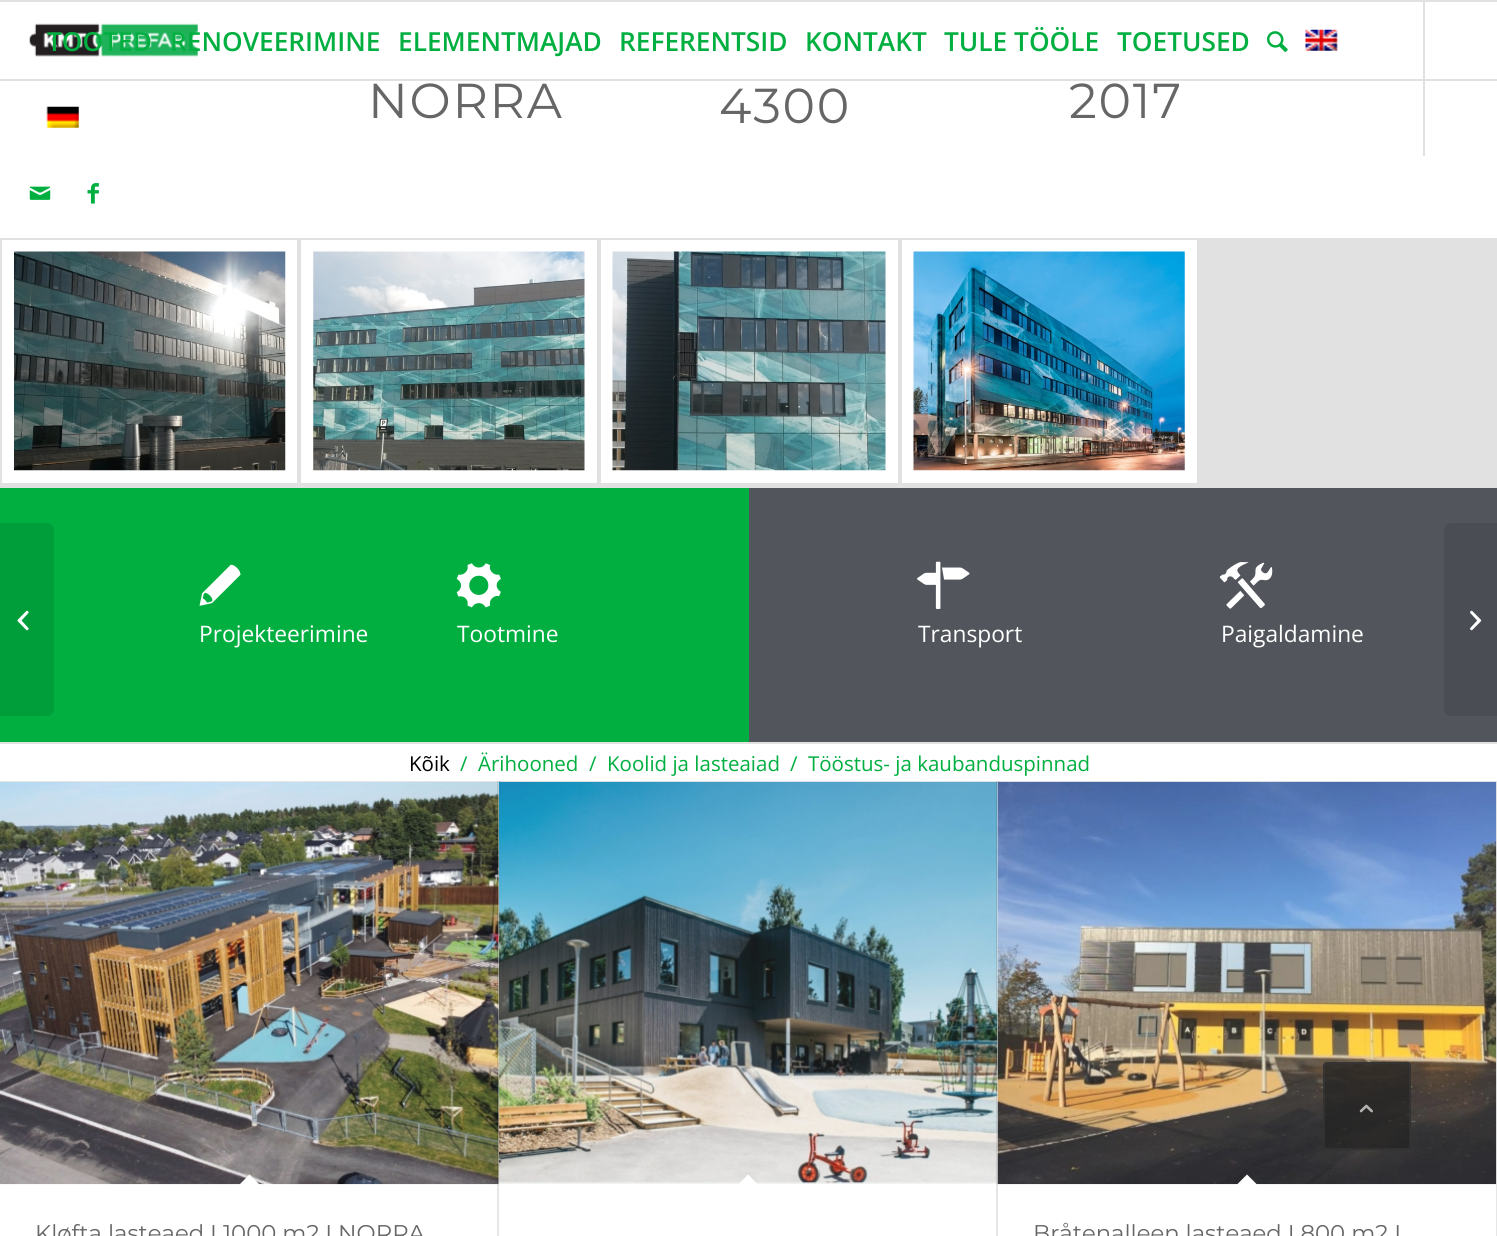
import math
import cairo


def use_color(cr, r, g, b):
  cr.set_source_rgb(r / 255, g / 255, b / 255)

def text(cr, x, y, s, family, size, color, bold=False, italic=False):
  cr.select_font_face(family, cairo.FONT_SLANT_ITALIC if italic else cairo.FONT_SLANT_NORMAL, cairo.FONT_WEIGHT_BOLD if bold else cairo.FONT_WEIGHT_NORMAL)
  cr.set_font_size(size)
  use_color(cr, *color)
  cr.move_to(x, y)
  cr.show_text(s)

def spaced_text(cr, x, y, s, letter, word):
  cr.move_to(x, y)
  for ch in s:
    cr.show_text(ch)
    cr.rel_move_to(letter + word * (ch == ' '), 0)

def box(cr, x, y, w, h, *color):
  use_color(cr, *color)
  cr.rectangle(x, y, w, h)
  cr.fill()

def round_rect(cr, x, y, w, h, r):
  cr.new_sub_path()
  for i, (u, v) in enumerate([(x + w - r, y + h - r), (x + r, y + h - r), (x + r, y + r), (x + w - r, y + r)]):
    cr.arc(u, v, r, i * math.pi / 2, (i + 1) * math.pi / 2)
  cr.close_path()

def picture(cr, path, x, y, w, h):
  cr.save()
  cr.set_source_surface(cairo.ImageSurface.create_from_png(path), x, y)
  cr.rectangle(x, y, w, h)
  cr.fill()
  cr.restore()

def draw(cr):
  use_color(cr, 255, 255, 255)
  cr.paint()
  box(cr, 0, 0, 1497, 2, 225, 225, 225)
  box(cr, 0, 79, 1497, 2, 225, 225, 225)
  picture(cr, "img_01.png", 29, 23, 169, 34)
  box(cr, 1423, 2, 2, 154, 225, 225, 225)
  picture(cr, "img_02.png", 1267, 31, 21, 21)
  picture(cr, "img_03.png", 1305, 29, 33, 22)
  picture(cr, "img_04.png", 46, 106, 33, 22)
  picture(cr, "img_05.png", 29, 186, 22, 14)
  picture(cr, "img_06.png", 87, 183, 12, 21)
  box(cr, 0, 488, 749, 254, 0, 175, 64)
  use_color(cr, 0, 158, 58)
  cr.new_path()
  cr.move_to(0, 523)
  cr.line_to(47, 523)
  cr.curve_to(51, 523, 54, 526, 54, 530)
  cr.line_to(54, 709)
  cr.curve_to(54, 713, 51, 716, 47, 716)
  cr.line_to(0, 716)
  cr.close_path()
  cr.fill()
  picture(cr, "img_07.png", 17, 610, 12, 21)
  box(cr, 0, 238, 1497, 250, 225, 225, 225)
  box(cr, 2, 240, 295, 243, 255, 255, 255)
  picture(cr, "img_08.png", 14, 251, 272, 220)
  box(cr, 301, 240, 296, 243, 255, 255, 255)
  picture(cr, "img_09.png", 313, 251, 272, 220)
  box(cr, 601, 240, 297, 243, 255, 255, 255)
  picture(cr, "img_10.png", 612, 251, 274, 220)
  box(cr, 902, 240, 295, 243, 255, 255, 255)
  picture(cr, "img_11.png", 913, 251, 272, 220)
  picture(cr, "img_12.png", 199, 564, 42, 42)
  picture(cr, "img_13.png", 456, 563, 45, 45)
  box(cr, 749, 488, 748, 254, 82, 86, 92)
  picture(cr, "img_14.png", 917, 561, 53, 48)
  picture(cr, "img_15.png", 1219, 562, 54, 47)
  box(cr, 0, 742, 1497, 2, 225, 225, 225)
  cr.rectangle(-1, 782, 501, 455)
  use_color(cr, 230, 230, 230)
  cr.stroke()
  box(cr, 0, 782, 499, 1, 255, 255, 255)
  picture(cr, "img_16.png", 0, 782, 499, 403)
  cr.new_path()
  cr.move_to(249.5, 1174.5)
  cr.line_to(262, 1187)
  cr.line_to(249.5, 1199)
  cr.line_to(237, 1187)
  cr.close_path()
  cr.fill()
  cr.rectangle(498, 782, 500, 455)
  cr.set_source_rgba(0, 0, 0, 0.1)
  cr.stroke()
  box(cr, 499, 782, 499, 454, 255, 255, 255)
  picture(cr, "img_17.png", 498, 781, 500, 403)
  cr.new_path()
  cr.move_to(748, 1174.5)
  cr.line_to(760.5, 1187)
  cr.line_to(748, 1199)
  cr.line_to(736, 1187)
  cr.close_path()
  cr.fill()
  cr.rectangle(997, 782, 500, 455)
  cr.set_source_rgba(0, 0, 0, 0.1)
  cr.stroke()
  box(cr, 998, 782, 498, 454, 255, 255, 255)
  picture(cr, "img_18.png", 997, 781, 500, 404)
  cr.new_path()
  cr.move_to(1247, 1174.5)
  cr.line_to(1259.5, 1187)
  cr.line_to(1247, 1199)
  cr.line_to(1234.5, 1187)
  cr.close_path()
  cr.fill()
  use_color(cr, 74, 77, 83)
  cr.new_path()
  cr.move_to(1451, 523)
  cr.line_to(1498, 523)
  cr.line_to(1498, 716)
  cr.line_to(1451, 716)
  cr.curve_to(1447, 716, 1444, 713, 1444, 709)
  cr.line_to(1444, 530)
  cr.curve_to(1444, 526, 1447, 523, 1451, 523)
  cr.close_path()
  cr.fill()
  picture(cr, "img_19.png", 1470, 610, 12, 21)
  cr.set_source_rgba(0.133, 0.133, 0.133, 0.7)
  round_rect(cr, 1323, 1062, 88, 88, 4)
  cr.fill()
  round_rect(cr, 1324, 1063, 86, 86, 3)
  cr.set_source_rgba(0.216, 0.216, 0.216, 0.7)
  cr.stroke()
  picture(cr, "img_20.png", 1359, 1104, 14, 9)
  text(cr, 47, 51, "TOOTED", "Open Sans SemiBold", 26.25, (0, 175, 64))
  text(cr, 170, 51, "RENOVEERIMINE", "Open Sans SemiBold", 26.25, (0, 175, 64))
  text(cr, 398, 51, "ELEMENTMAJAD", "Open Sans SemiBold", 26.25, (0, 175, 64))
  text(cr, 619, 51, "REFERENTSID", "Open Sans SemiBold", 26.25, (0, 175, 64))
  text(cr, 805, 51, "KONTAKT", "Open Sans SemiBold", 26.25, (0, 175, 64))
  text(cr, 944, 51, "TULE TÖÖLE", "Open Sans SemiBold", 26.25, (0, 175, 64))
  text(cr, 1117, 51, "TOETUSED", "Open Sans SemiBold", 26.25, (0, 175, 64))
  cr.select_font_face("Montserrat Thin")
  cr.set_font_size(49)
  use_color(cr, 102, 102, 102)
  spaced_text(cr, 368, 118, "NORRA", 1.75, 0)
  spaced_text(cr, 719, 123, "4300", 1.75, 0)
  spaced_text(cr, 1069, 118, "2017", 1.75, 0)
  text(cr, 199, 642, "Projekteerimine", "Open Sans", 22.75, (255, 255, 255))
  text(cr, 457, 642, "Tootmine", "Open Sans", 22.75, (255, 255, 255))
  text(cr, 918, 642, "Transport", "Open Sans", 22.75, (255, 255, 255))
  text(cr, 1221, 642, "Paigaldamine", "Open Sans", 22.75, (255, 255, 255))
  text(cr, 409, 771, "Kõik", "Open Sans", 20.5, (0, 0, 0))
  text(cr, 460, 771, "/", "Open Sans", 20.5, (0, 175, 64))
  text(cr, 478, 771, "Ärihooned", "Open Sans", 20.5, (0, 175, 64))
  text(cr, 589, 771, "/", "Open Sans", 20.5, (0, 175, 64))
  text(cr, 607, 771, "Koolid ja lasteaiad", "Open Sans", 20.5, (0, 175, 64))
  text(cr, 790, 771, "/", "Open Sans", 20.5, (0, 175, 64))
  text(cr, 808, 771, "Tööstus- ja kaubanduspinnad", "Open Sans", 20.5, (0, 175, 64))
  text(cr, 35, 1241, "Kløfta lasteaed I 1000 m2 I NORRA", "Montserrat Thin", 22.75, (102, 102, 102))
  text(cr, 1033, 1241, "Bråtenalleen lasteaed I 800 m2 I", "Montserrat Thin", 22.75, (102, 102, 102))


surface = cairo.ImageSurface(cairo.FORMAT_RGB24, 1497, 1236)
cr = cairo.Context(surface)
options = cairo.FontOptions()
options.set_hint_metrics(cairo.HINT_METRICS_OFF)
options.set_hint_style(cairo.HINT_STYLE_NONE)
cr.set_font_options(options)
cr.set_miter_limit(4)
draw(cr)
surface.write_to_png("out.png")
